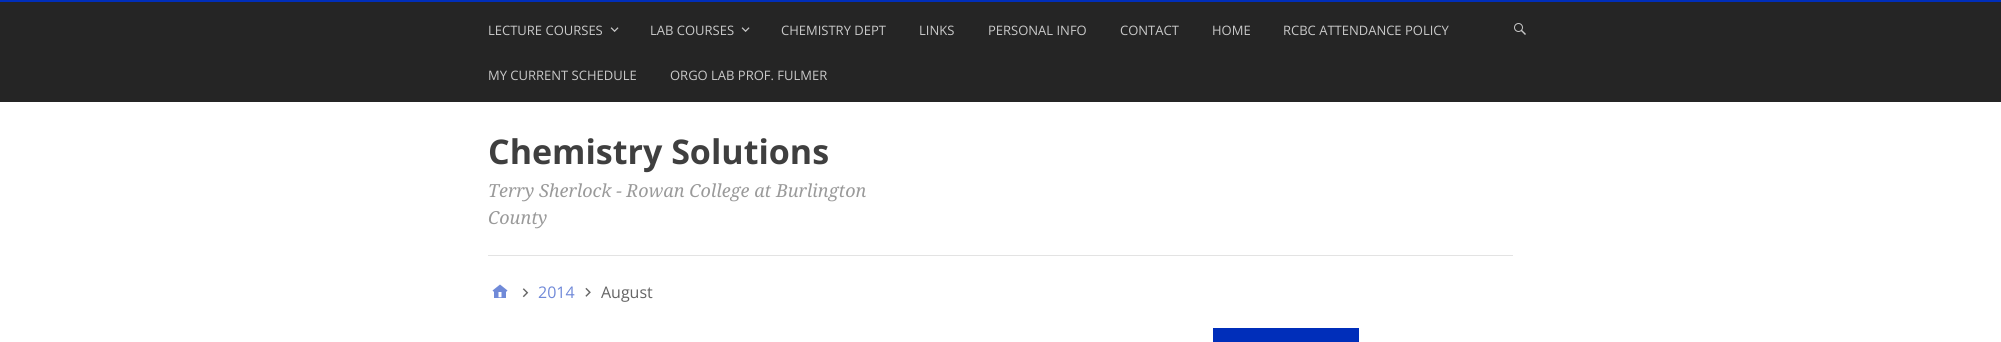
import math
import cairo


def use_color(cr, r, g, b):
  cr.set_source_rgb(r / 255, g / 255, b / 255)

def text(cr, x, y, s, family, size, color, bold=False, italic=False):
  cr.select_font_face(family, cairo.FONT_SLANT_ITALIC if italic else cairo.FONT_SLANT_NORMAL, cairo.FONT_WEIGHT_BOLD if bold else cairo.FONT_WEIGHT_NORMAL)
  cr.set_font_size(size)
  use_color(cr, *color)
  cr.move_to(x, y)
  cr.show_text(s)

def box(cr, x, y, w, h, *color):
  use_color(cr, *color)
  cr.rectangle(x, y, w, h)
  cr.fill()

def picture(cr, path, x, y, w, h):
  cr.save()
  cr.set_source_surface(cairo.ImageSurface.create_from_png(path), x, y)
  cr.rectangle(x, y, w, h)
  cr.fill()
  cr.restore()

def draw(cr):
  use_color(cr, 255, 255, 255)
  cr.paint()
  box(cr, 0, 0, 2001, 2, 0, 46, 186)
  box(cr, 0, 2, 2001, 100, 37, 37, 37)
  picture(cr, "img_01.png", 610, 27, 9, 5)
  picture(cr, "img_01.png", 741, 27, 9, 5)
  picture(cr, "img_02.png", 1514, 23, 12, 12)
  box(cr, 488, 255, 1025, 1, 227, 227, 227)
  picture(cr, "img_03.png", 492, 284, 16, 14)
  picture(cr, "img_04.png", 522, 288, 7, 10)
  picture(cr, "img_05.png", 585, 287, 6, 10)
  box(cr, 1213, 328, 146, 14, 0, 46, 186)
  text(cr, 488, 35, "LECTURE COURSES", "Open Sans", 13, (201, 201, 201))
  text(cr, 650, 35, "LAB COURSES", "Open Sans", 13, (201, 201, 201))
  text(cr, 781, 35, "CHEMISTRY DEPT", "Open Sans", 13, (201, 201, 201))
  text(cr, 919, 35, "LINKS", "Open Sans", 13, (201, 201, 201))
  text(cr, 988, 35, "PERSONAL INFO", "Open Sans", 13, (201, 201, 201))
  text(cr, 1120, 35, "CONTACT", "Open Sans", 13, (201, 201, 201))
  text(cr, 1212, 35, "HOME", "Open Sans", 13, (201, 201, 201))
  text(cr, 1283, 35, "RCBC ATTENDANCE POLICY", "Open Sans", 13, (201, 201, 201))
  text(cr, 488, 80, "MY CURRENT SCHEDULE", "Open Sans", 13, (201, 201, 201))
  text(cr, 670, 80, "ORGO LAB PROF. FULMER", "Open Sans", 13, (201, 201, 201))
  text(cr, 488, 164, "Chemistry Solutions", "Open Sans", 34, (63, 63, 63), bold=True)
  text(cr, 488, 197, "Terry Sherlock - Rowan College at Burlington", "Droid Serif", 18, (154, 154, 154), italic=True)
  text(cr, 488, 224, "County", "Droid Serif", 18, (154, 154, 154), italic=True)
  text(cr, 538, 298, "2014", "Open Sans", 16, (112, 137, 216))
  text(cr, 601, 298, "August", "Open Sans", 16, (101, 101, 101))


surface = cairo.ImageSurface(cairo.FORMAT_RGB24, 2001, 342)
cr = cairo.Context(surface)
options = cairo.FontOptions()
options.set_hint_metrics(cairo.HINT_METRICS_OFF)
options.set_hint_style(cairo.HINT_STYLE_NONE)
cr.set_font_options(options)
cr.set_miter_limit(4)
draw(cr)
surface.write_to_png("out.png")
